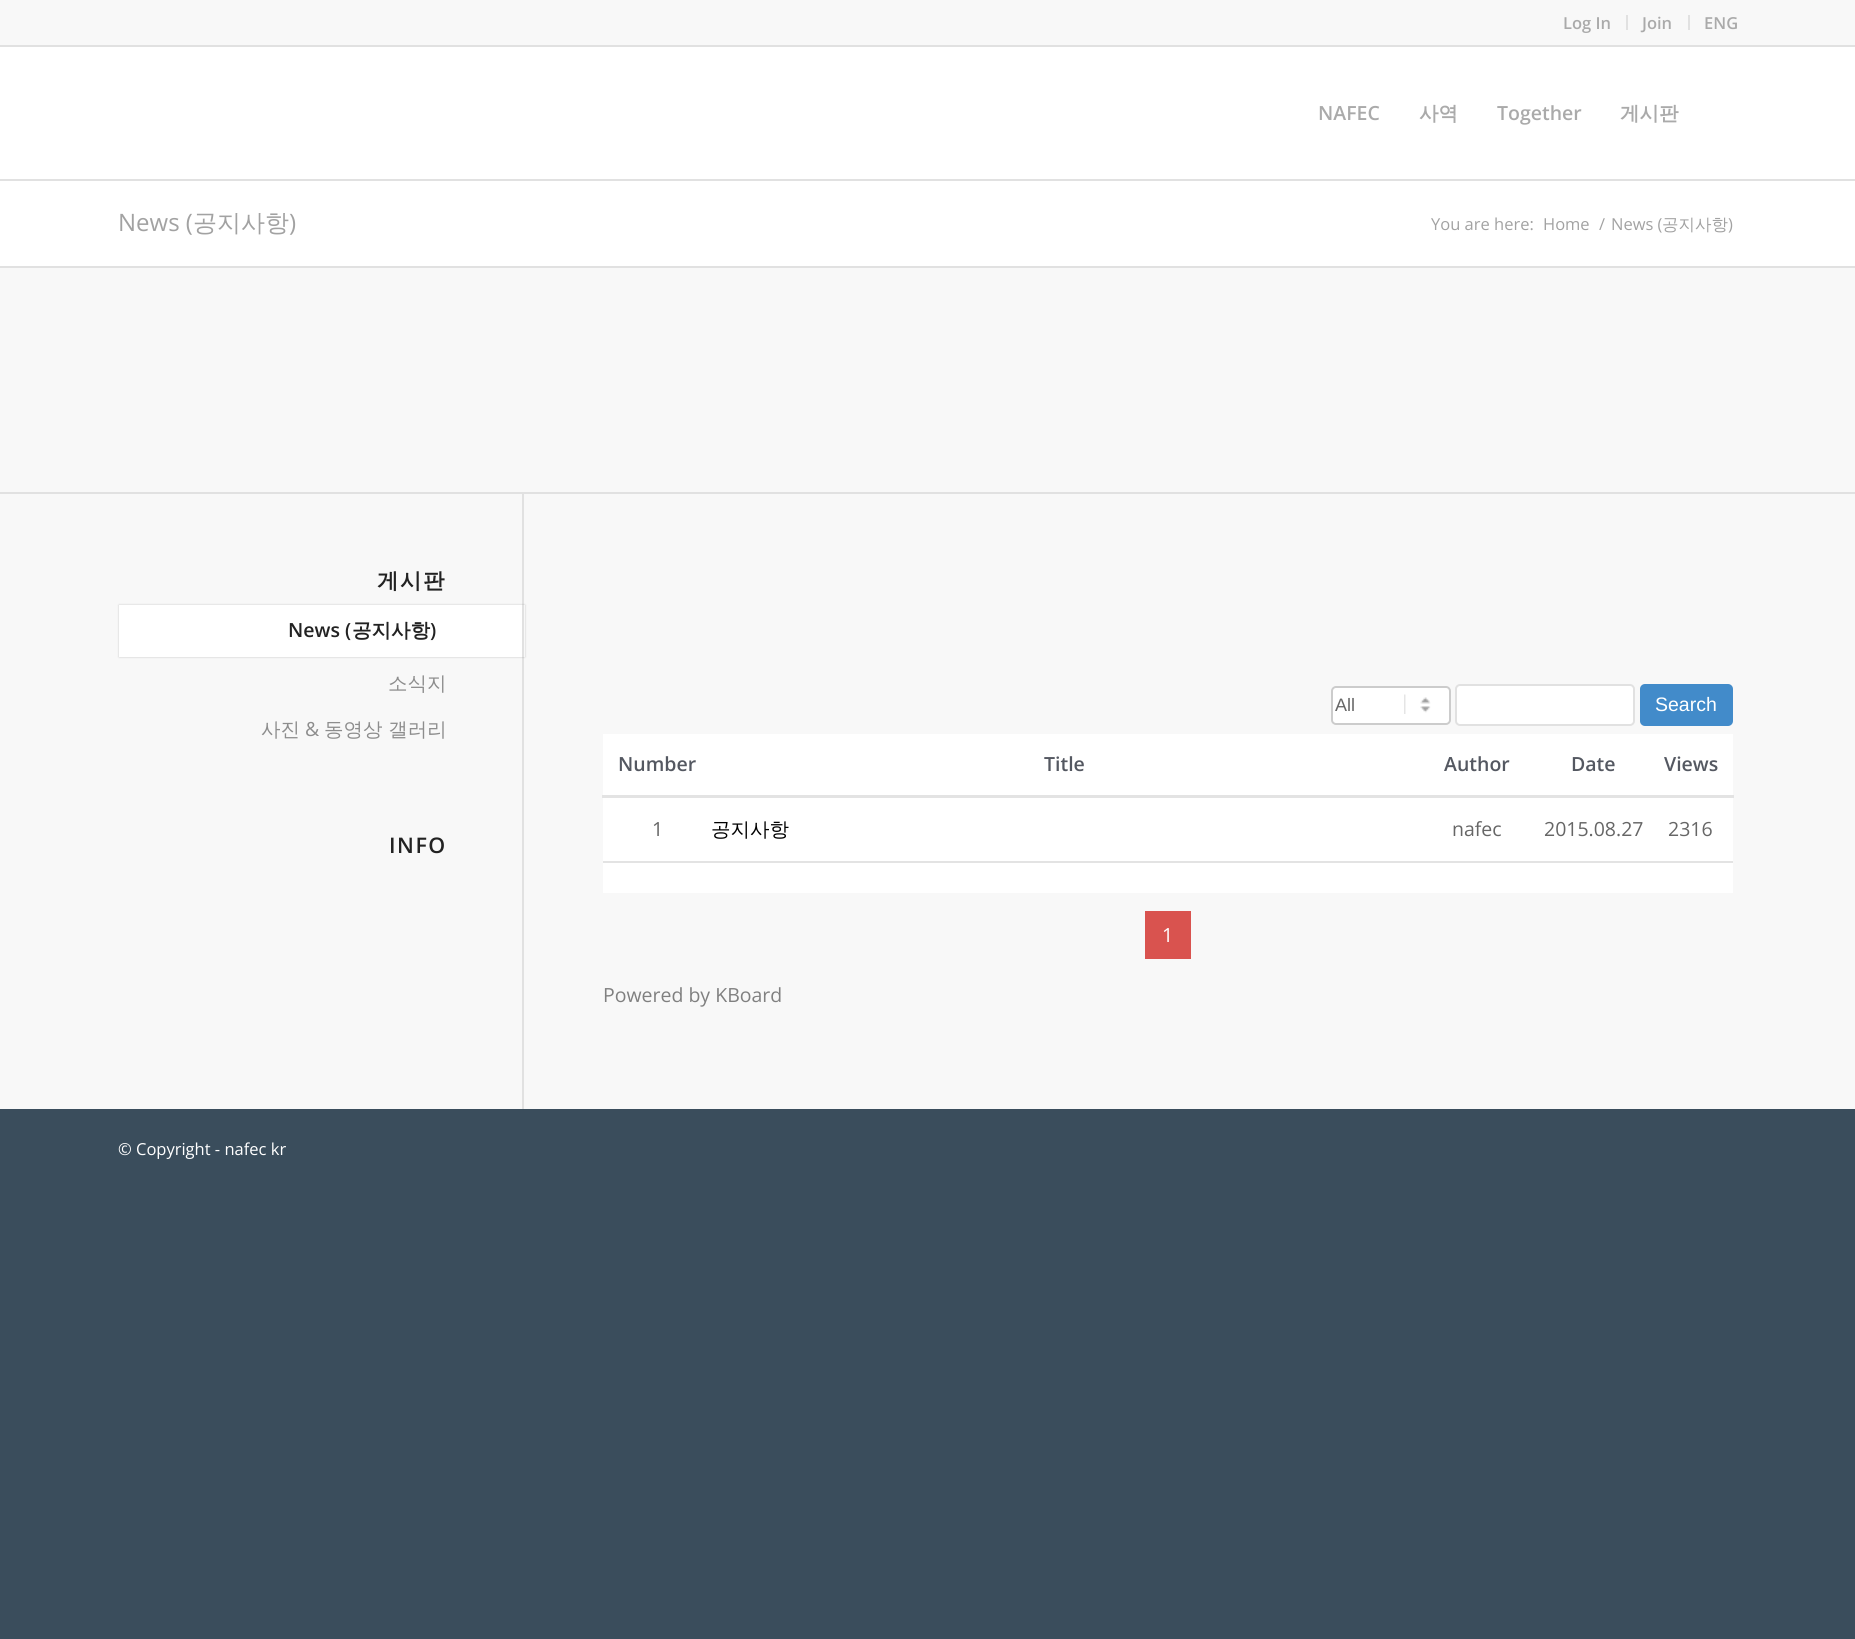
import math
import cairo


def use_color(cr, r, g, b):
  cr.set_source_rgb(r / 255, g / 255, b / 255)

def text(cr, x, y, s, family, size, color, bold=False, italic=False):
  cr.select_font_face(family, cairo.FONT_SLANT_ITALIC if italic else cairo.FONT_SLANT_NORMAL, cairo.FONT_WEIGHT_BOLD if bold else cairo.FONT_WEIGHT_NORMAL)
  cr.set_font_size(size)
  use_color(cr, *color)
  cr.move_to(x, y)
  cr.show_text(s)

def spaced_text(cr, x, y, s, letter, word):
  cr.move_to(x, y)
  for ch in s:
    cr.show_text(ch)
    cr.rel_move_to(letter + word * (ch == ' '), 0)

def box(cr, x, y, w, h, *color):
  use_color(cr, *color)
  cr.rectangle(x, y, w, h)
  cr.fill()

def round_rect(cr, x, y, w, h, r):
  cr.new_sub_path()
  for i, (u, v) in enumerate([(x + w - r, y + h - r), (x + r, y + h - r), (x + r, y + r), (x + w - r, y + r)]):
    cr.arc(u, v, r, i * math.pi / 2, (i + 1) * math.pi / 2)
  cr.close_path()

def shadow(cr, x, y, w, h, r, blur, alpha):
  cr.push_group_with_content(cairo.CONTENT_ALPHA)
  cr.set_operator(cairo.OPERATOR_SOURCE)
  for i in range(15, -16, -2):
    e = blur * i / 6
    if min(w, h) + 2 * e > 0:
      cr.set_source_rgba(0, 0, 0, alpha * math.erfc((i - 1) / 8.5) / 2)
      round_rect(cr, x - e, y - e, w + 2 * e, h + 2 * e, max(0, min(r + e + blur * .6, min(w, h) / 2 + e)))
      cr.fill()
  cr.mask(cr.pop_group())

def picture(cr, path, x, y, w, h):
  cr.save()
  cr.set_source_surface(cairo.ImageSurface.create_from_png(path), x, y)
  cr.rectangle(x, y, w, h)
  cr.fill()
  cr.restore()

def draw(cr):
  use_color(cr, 58, 77, 92)
  cr.paint()
  box(cr, 0, 0, 1855, 45, 248, 248, 248)
  box(cr, 0, 45, 1855, 2, 225, 225, 225)
  box(cr, 1626, 15, 2, 15, 225, 225, 225)
  box(cr, 1688, 15, 2, 15, 225, 225, 225)
  box(cr, 0, 179, 1855, 2, 225, 225, 225)
  box(cr, 0, 181, 1855, 85, 255, 255, 255)
  box(cr, 0, 47, 1855, 132, 255, 255, 255)
  box(cr, 0, 268, 1855, 224, 248, 248, 248)
  box(cr, 0, 266, 1855, 2, 225, 225, 225)
  box(cr, 0, 494, 1855, 615, 248, 248, 248)
  box(cr, 0, 492, 1855, 2, 225, 225, 225)
  box(cr, 522, 494, 2, 615, 225, 225, 225)
  cr.save()
  cr.set_fill_rule(cairo.FILL_RULE_EVEN_ODD)
  cr.new_path()
  cr.move_to(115, 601)
  cr.line_to(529, 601)
  cr.line_to(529, 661)
  cr.line_to(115, 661)
  cr.close_path()
  cr.move_to(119, 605)
  cr.line_to(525, 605)
  cr.line_to(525, 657)
  cr.line_to(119, 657)
  cr.close_path()
  cr.clip()
  use_color(cr, 0, 0, 0)
  shadow(cr, 119, 605, 406, 52, 0, 1, 0.2)
  cr.restore()
  box(cr, 119, 605, 403, 52, 255, 255, 255)
  round_rect(cr, 1331, 686, 120, 39, 5)
  cr.fill()
  picture(cr, "img_01.png", 1404, 694, 27, 20)
  round_rect(cr, 1332, 687, 118, 37, 4)
  use_color(cr, 204, 204, 204)
  cr.stroke()
  use_color(cr, 255, 255, 255)
  round_rect(cr, 1456, 685, 178, 40, 4)
  cr.fill_preserve()
  use_color(cr, 225, 225, 225)
  cr.stroke()
  use_color(cr, 66, 139, 202)
  round_rect(cr, 1640, 684, 93, 42, 5)
  cr.fill()
  box(cr, 603, 734, 1130, 159, 255, 255, 255)
  box(cr, 602, 795, 1132, 3, 227, 227, 227)
  box(cr, 603, 861, 1130, 2, 227, 227, 227)
  box(cr, 1145, 911, 46, 48, 217, 83, 79)
  text(cr, 1563, 29, "Log In", "Open Sans SemiBold", 16.5, (170, 170, 170))
  text(cr, 1642, 29, "Join", "Open Sans SemiBold", 16.5, (170, 170, 170))
  text(cr, 1704, 29, "ENG", "Open Sans SemiBold", 16.5, (170, 170, 170))
  text(cr, 1318, 120, "NAFEC", "Open Sans SemiBold", 19.5, (170, 170, 170))
  text(cr, 1419, 120, "사역", "WenQuanYi Zen Hei", 19.5, (170, 170, 170), bold=True)
  text(cr, 1497, 120, "Together", "Open Sans SemiBold", 19.5, (170, 170, 170))
  text(cr, 1620, 120, "게시판", "WenQuanYi Zen Hei", 19.5, (170, 170, 170), bold=True)
  text(cr, 118, 231, "News (", "Open Sans", 24, (162, 162, 162))
  text(cr, 193, 231, "공지사항", "WenQuanYi Zen Hei Medium", 24, (162, 162, 162))
  text(cr, 289, 231, ")", "Open Sans", 24, (162, 162, 162))
  text(cr, 1431, 230, "You are here:", "Open Sans", 16.5, (162, 162, 162))
  text(cr, 1543, 230, "Home", "Open Sans", 16.5, (162, 162, 162))
  text(cr, 1599, 230, "/", "Open Sans", 16.5, (162, 162, 162))
  text(cr, 1611, 230, "News (", "Open Sans", 16.5, (162, 162, 162))
  text(cr, 1662, 230, "공지사항", "WenQuanYi Zen Hei Medium", 16.5, (162, 162, 162))
  text(cr, 1728, 230, ")", "Open Sans", 16.5, (162, 162, 162))
  cr.select_font_face("WenQuanYi Zen Hei", cairo.FONT_SLANT_NORMAL, cairo.FONT_WEIGHT_BOLD)
  cr.set_font_size(21.5)
  use_color(cr, 34, 34, 34)
  spaced_text(cr, 377, 588, "게시판", 1.5, 0)
  text(cr, 288, 637, "News (", "Open Sans SemiBold", 19.5, (34, 34, 34))
  text(cr, 352, 637, "공지사항", "WenQuanYi Zen Hei", 19.5, (34, 34, 34), bold=True)
  text(cr, 430, 637, ")", "Open Sans SemiBold", 19.5, (34, 34, 34))
  text(cr, 388, 690, "소식지", "WenQuanYi Zen Hei Medium", 19.5, (141, 141, 141))
  text(cr, 261, 736, "사진", "WenQuanYi Zen Hei Medium", 19.5, (141, 141, 141))
  text(cr, 305, 736, "&", "Open Sans", 19.5, (141, 141, 141))
  text(cr, 324, 736, "동영상 갤러리", "WenQuanYi Zen Hei Medium", 19.5, (141, 141, 141))
  cr.select_font_face("Open Sans SemiBold")
  cr.set_font_size(21.5)
  use_color(cr, 34, 34, 34)
  spaced_text(cr, 389, 853, "INFO", 1.5, 0)
  text(cr, 1335, 711, "All", "Liberation Sans", 18, (102, 102, 102))
  text(cr, 1655, 711, "Search", "Liberation Sans", 19.5, (255, 255, 255))
  text(cr, 618, 771, "Number", "Open Sans SemiBold", 19.5, (84, 88, 97))
  text(cr, 1044, 771, "Title", "Open Sans SemiBold", 19.5, (84, 88, 97))
  text(cr, 1444, 771, "Author", "Open Sans SemiBold", 19.5, (84, 88, 97))
  text(cr, 1571, 771, "Date", "Open Sans SemiBold", 19.5, (84, 88, 97))
  text(cr, 1664, 771, "Views", "Open Sans SemiBold", 19.5, (84, 88, 97))
  text(cr, 652, 836, "1", "Open Sans", 19.5, (102, 102, 102))
  text(cr, 711, 836, "공지사항", "WenQuanYi Zen Hei Medium", 19.5, (0, 0, 0))
  text(cr, 1452, 836, "nafec", "Open Sans", 19.5, (102, 102, 102))
  text(cr, 1544, 836, "2015.08.27", "Open Sans", 19.5, (102, 102, 102))
  text(cr, 1668, 836, "2316", "Open Sans", 19.5, (102, 102, 102))
  text(cr, 1162, 942, "1", "Open Sans", 19.5, (255, 255, 255))
  text(cr, 603, 1002, "Powered by KBoard", "Open Sans", 19.5, (128, 128, 128))
  text(cr, 118, 1155, "© Copyright - nafec kr", "Open Sans", 16.5, (255, 255, 255))


surface = cairo.ImageSurface(cairo.FORMAT_RGB24, 1855, 1639)
cr = cairo.Context(surface)
options = cairo.FontOptions()
options.set_hint_metrics(cairo.HINT_METRICS_OFF)
options.set_hint_style(cairo.HINT_STYLE_NONE)
cr.set_font_options(options)
cr.set_miter_limit(4)
draw(cr)
surface.write_to_png("out.png")
